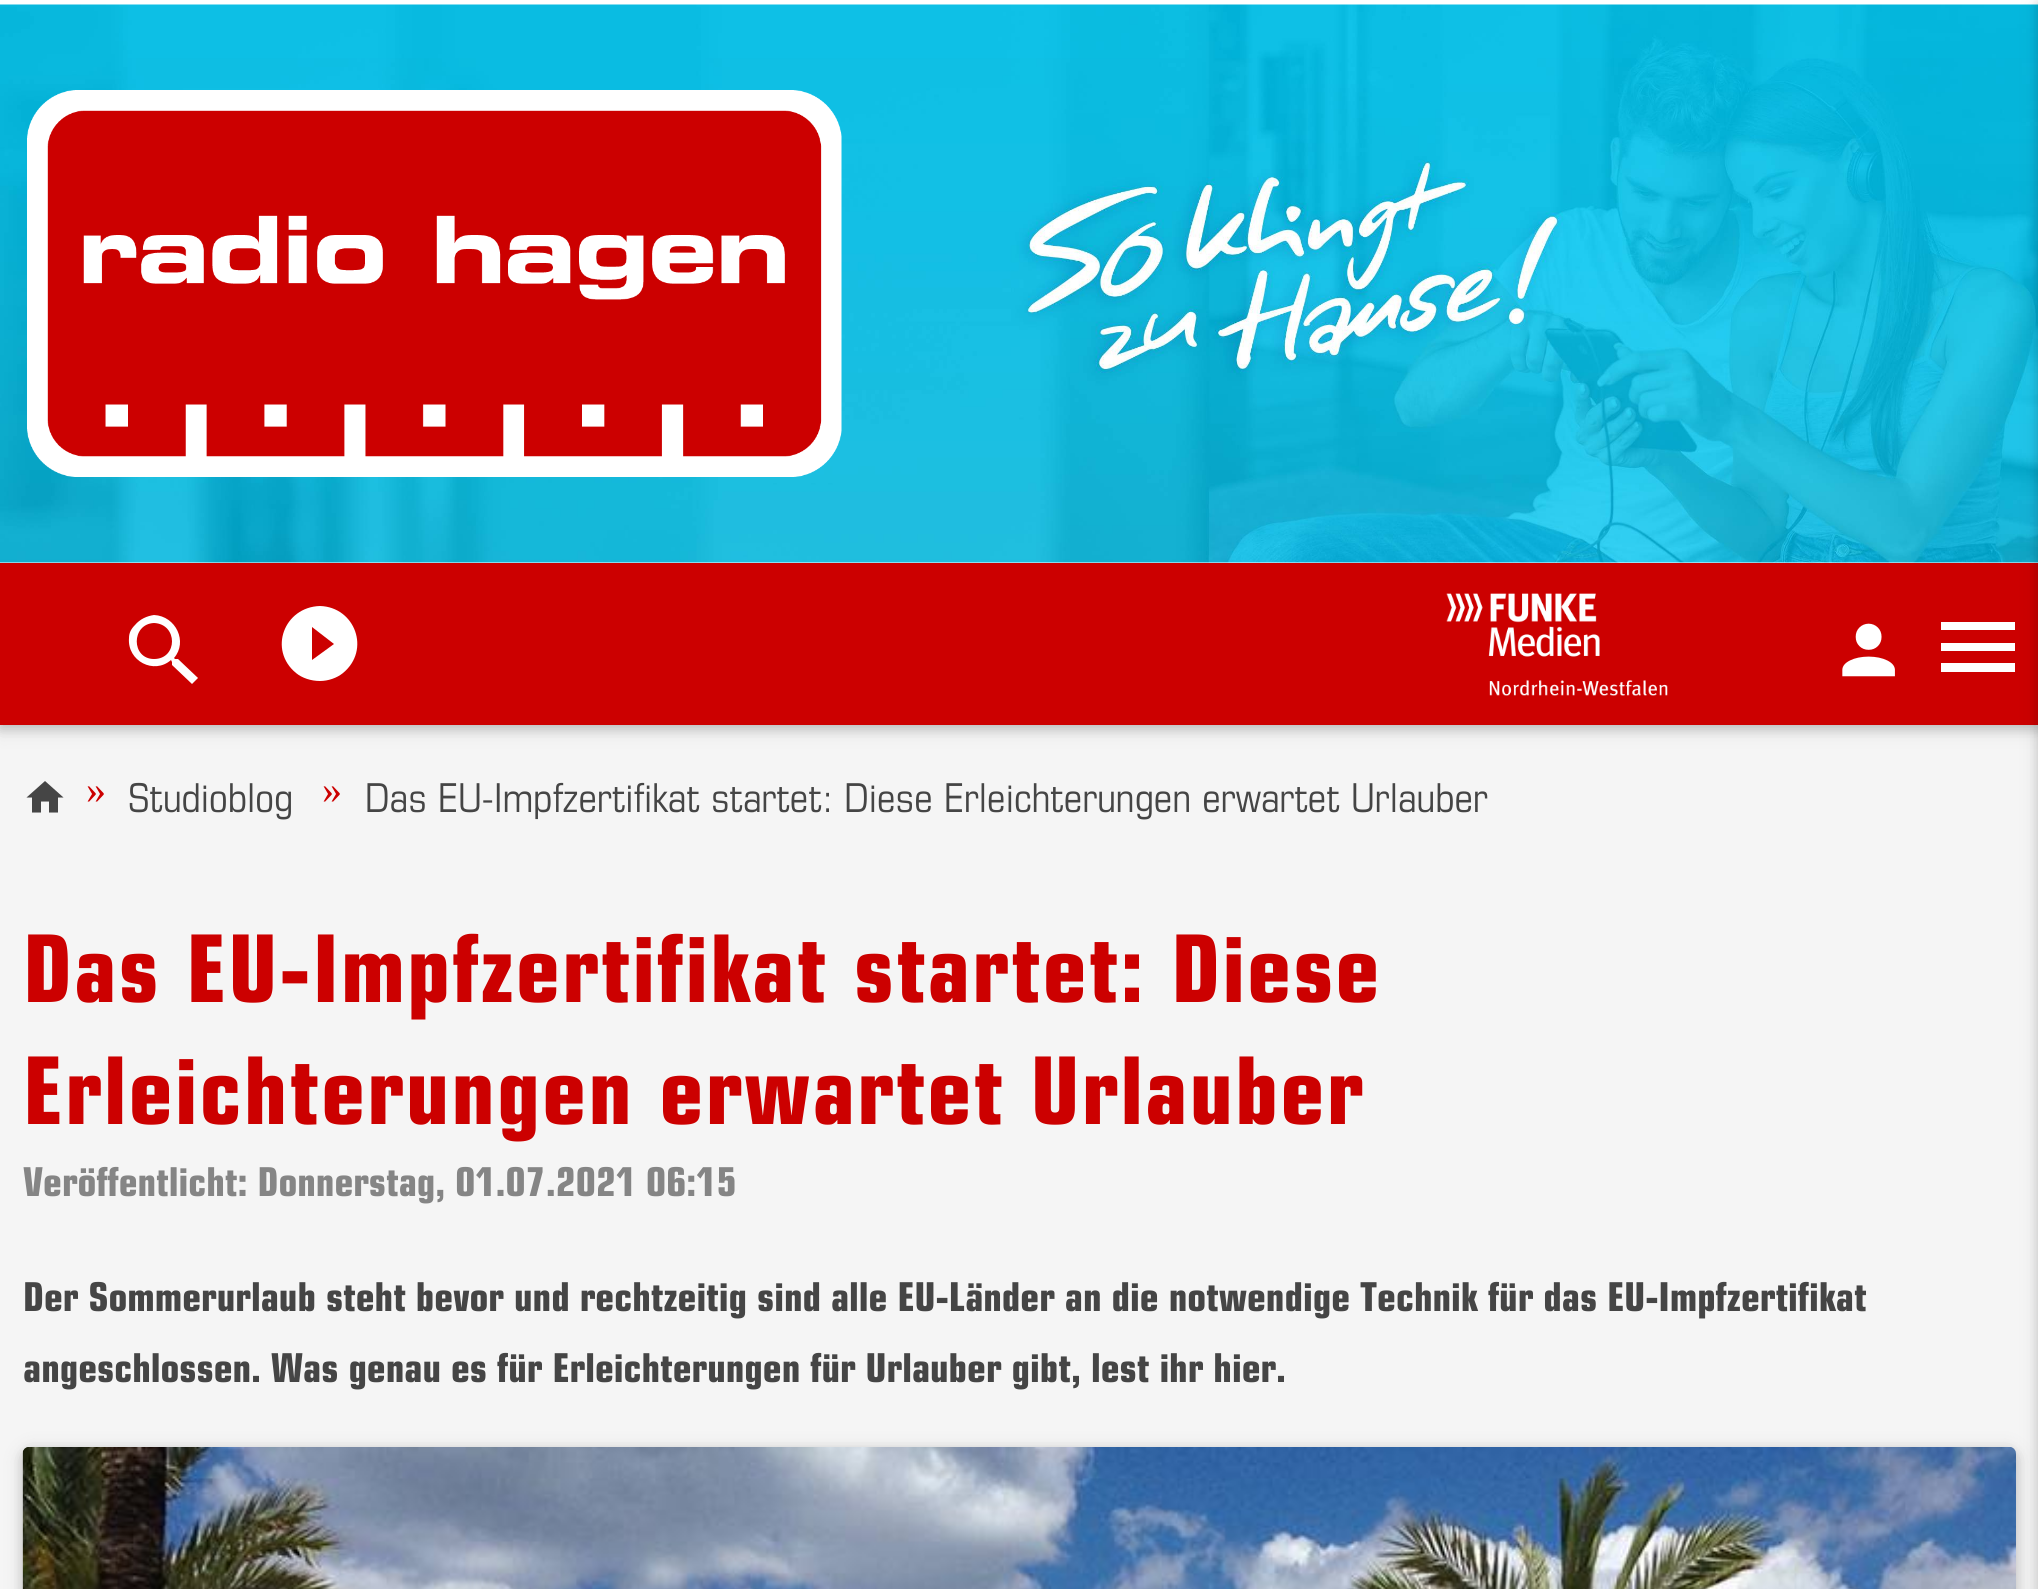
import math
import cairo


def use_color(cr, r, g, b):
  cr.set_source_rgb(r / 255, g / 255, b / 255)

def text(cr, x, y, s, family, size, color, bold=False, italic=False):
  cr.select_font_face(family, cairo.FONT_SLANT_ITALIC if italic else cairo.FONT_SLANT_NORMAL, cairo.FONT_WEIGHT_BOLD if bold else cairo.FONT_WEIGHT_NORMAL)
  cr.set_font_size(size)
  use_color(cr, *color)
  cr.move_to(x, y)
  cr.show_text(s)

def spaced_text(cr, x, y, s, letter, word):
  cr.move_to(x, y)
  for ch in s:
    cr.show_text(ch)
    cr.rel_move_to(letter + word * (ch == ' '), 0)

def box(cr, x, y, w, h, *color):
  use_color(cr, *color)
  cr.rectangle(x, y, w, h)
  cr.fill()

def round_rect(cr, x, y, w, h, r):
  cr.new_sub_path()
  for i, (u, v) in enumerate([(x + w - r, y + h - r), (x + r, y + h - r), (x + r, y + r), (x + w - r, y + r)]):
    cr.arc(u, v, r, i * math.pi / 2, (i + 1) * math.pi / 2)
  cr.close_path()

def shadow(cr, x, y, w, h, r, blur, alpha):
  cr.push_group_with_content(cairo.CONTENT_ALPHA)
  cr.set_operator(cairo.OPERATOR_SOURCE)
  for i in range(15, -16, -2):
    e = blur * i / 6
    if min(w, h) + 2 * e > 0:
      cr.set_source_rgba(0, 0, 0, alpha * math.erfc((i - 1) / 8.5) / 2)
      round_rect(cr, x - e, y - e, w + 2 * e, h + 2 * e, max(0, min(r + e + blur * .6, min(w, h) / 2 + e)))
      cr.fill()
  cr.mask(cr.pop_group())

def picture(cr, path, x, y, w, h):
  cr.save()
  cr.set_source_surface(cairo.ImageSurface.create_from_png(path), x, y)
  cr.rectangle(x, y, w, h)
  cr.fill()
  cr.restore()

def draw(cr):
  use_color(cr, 245, 245, 245)
  cr.paint()
  use_color(cr, 0, 0, 0)
  shadow(cr, 0, 5, 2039, 724, 0, 11, 0.12)
  shadow(cr, 0, 5, 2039, 724, 0, 5.5, 0.16)
  box(cr, 0, 0, 2038, 5, 255, 255, 255)
  box(cr, 0, 562, 2038, 1, 255, 255, 255)
  picture(cr, "img_01.png", 0, 4, 2038, 559)
  picture(cr, "img_02.png", 27, 90, 815, 387)
  box(cr, 0, 563, 2038, 162, 204, 0, 0)
  use_color(cr, 255, 255, 255)
  cr.new_path()
  cr.move_to(154, 615)
  cr.curve_to(176, 616, 188, 642, 174, 658)
  cr.line_to(175, 659)
  cr.line_to(178, 659)
  cr.line_to(198, 678)
  cr.line_to(192, 684)
  cr.line_to(172, 665)
  cr.line_to(172, 662)
  cr.line_to(171, 660)
  cr.curve_to(154, 675, 127, 661, 129, 638)
  cr.curve_to(129, 633, 131, 629, 135, 625)
  cr.curve_to(140, 619, 147, 616, 154, 615)
  cr.close_path()
  cr.move_to(154, 623)
  cr.curve_to(131, 624, 131, 659, 154, 659)
  cr.curve_to(178, 659, 178, 624, 154, 623)
  cr.close_path()
  cr.fill()
  cr.new_path()
  cr.move_to(312, 660)
  cr.line_to(312, 627)
  cr.line_to(334, 644)
  cr.close_path()
  cr.move_to(320, 606)
  cr.curve_to(284, 607, 268, 650, 296, 673)
  cr.curve_to(302, 678, 311, 681, 320, 681)
  cr.curve_to(328, 681, 337, 678, 343, 673)
  cr.curve_to(371, 650, 355, 607, 320, 606)
  cr.close_path()
  cr.fill()
  picture(cr, "img_03.png", 1446, 593, 222, 103)
  picture(cr, "img_04.png", 1842, 623, 53, 54)
  cr.new_path()
  cr.move_to(1941, 622)
  cr.line_to(2015, 622)
  cr.line_to(2015, 630)
  cr.line_to(1941, 630)
  cr.close_path()
  cr.move_to(1941, 643)
  cr.line_to(2015, 643)
  cr.line_to(2015, 651)
  cr.line_to(1941, 651)
  cr.close_path()
  cr.move_to(1941, 663)
  cr.line_to(2015, 663)
  cr.line_to(2015, 672)
  cr.line_to(1941, 672)
  cr.close_path()
  cr.fill()
  use_color(cr, 69, 69, 69)
  cr.new_path()
  cr.move_to(41, 812.5)
  cr.line_to(41, 801.5)
  cr.line_to(49, 801.5)
  cr.line_to(49, 812.5)
  cr.line_to(58, 812.5)
  cr.line_to(58, 797.5)
  cr.line_to(63.5, 797.5)
  cr.line_to(45, 781)
  cr.line_to(26.5, 797.5)
  cr.line_to(32, 797.5)
  cr.line_to(32, 812.5)
  cr.close_path()
  cr.fill()
  use_color(cr, 0, 0, 0)
  shadow(cr, 23, 1451, 1993, 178, 7, 11, 0.12)
  shadow(cr, 23, 1451, 1993, 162, 7, 5.5, 0.16)
  picture(cr, "img_05.png", 22, 1447, 1994, 142)
  shadow(cr, 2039, 5, 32, 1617, 0, 11, 0.12)
  shadow(cr, 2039, 5, 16, 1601, 0, 5.5, 0.16)
  text(cr, 86, 803, "»", "Liberation Serif", 40, (204, 0, 0))
  text(cr, 128, 812, "Studioblog", "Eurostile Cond", 43.2, (69, 69, 69))
  text(cr, 322, 803, "»", "Liberation Serif", 40, (204, 0, 0))
  text(cr, 365, 812, "Das EU-Impfzertifikat startet: Diese Erleichterungen erwartet Urlauber", "Eurostile Cond", 43.2, (69, 69, 69))
  cr.select_font_face("Eurostile Cond Black")
  cr.set_font_size(101.25)
  use_color(cr, 204, 0, 0)
  spaced_text(cr, 23, 1002, "Das EU-Impfzertifikat startet: Diese", 2, 0)
  spaced_text(cr, 23, 1124, "Erleichterungen erwartet Urlauber", 2, 0)
  text(cr, 23, 1196, "Veröffentlicht: Donnerstag, 01.07.2021 06:15", "Eurostile Cond Black", 43.2, (133, 133, 133))
  text(cr, 23, 1311, "Der Sommerurlaub steht bevor und rechtzeitig sind alle EU-Länder an die notwendige Technik für das EU-Impfzertifikat", "Eurostile Cond Black", 43.2, (69, 69, 69))
  text(cr, 23, 1382, "angeschlossen. Was genau es für Erleichterungen für Urlauber gibt, lest ihr hier.", "Eurostile Cond Black", 43.2, (69, 69, 69))


surface = cairo.ImageSurface(cairo.FORMAT_RGB24, 2038, 1589)
cr = cairo.Context(surface)
options = cairo.FontOptions()
options.set_hint_metrics(cairo.HINT_METRICS_OFF)
options.set_hint_style(cairo.HINT_STYLE_NONE)
cr.set_font_options(options)
cr.set_miter_limit(4)
draw(cr)
surface.write_to_png("out.png")
